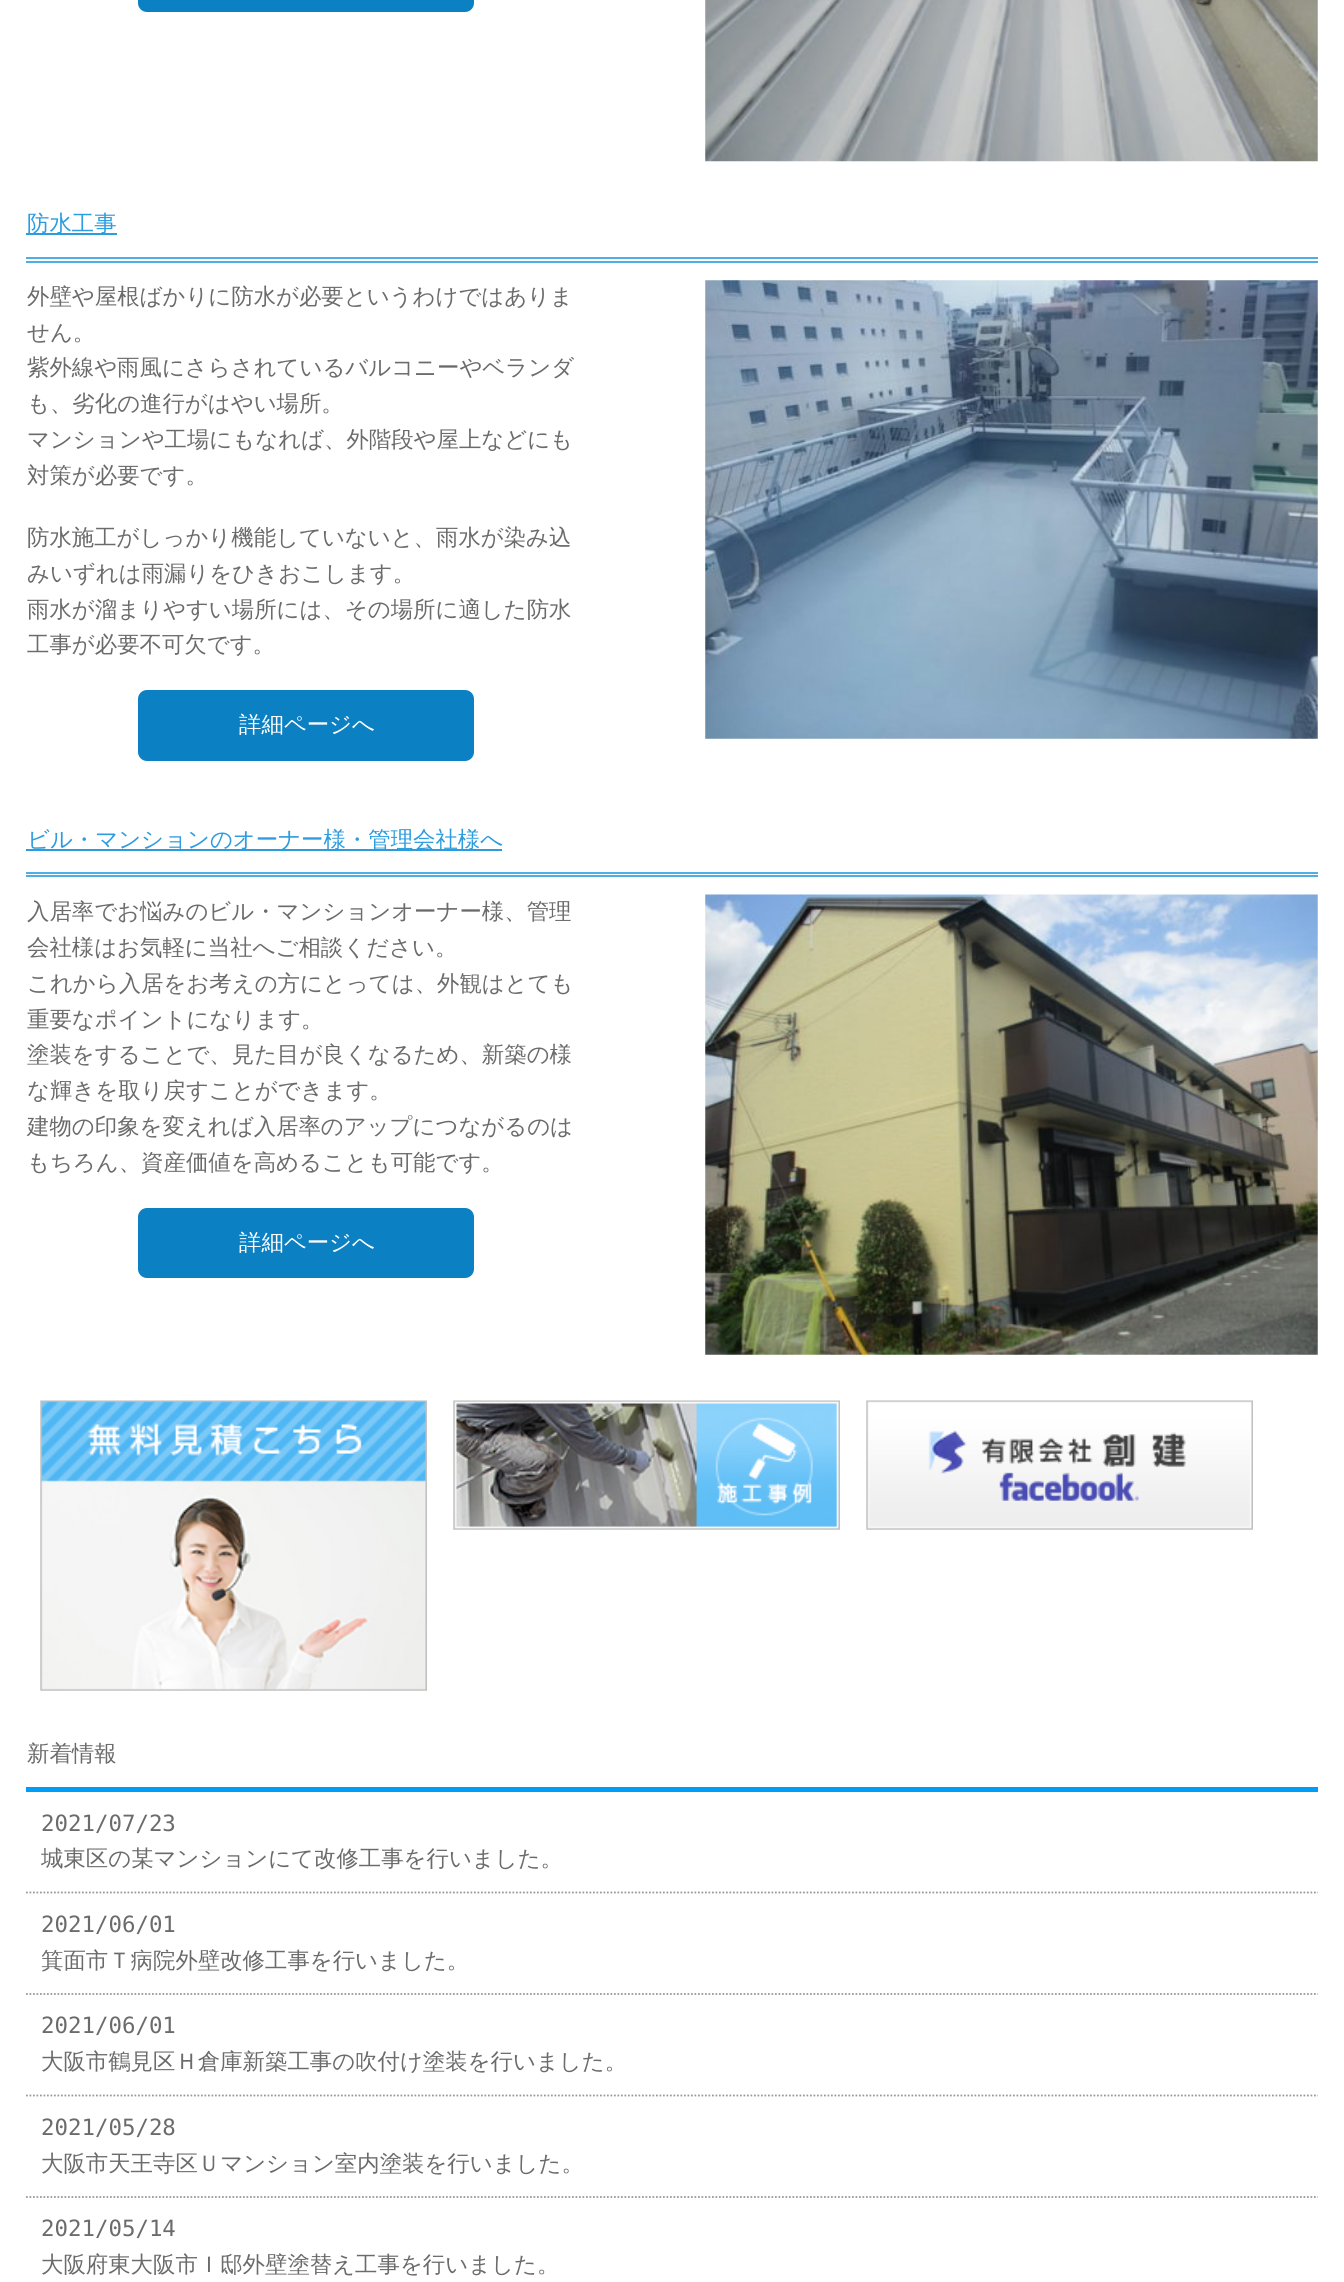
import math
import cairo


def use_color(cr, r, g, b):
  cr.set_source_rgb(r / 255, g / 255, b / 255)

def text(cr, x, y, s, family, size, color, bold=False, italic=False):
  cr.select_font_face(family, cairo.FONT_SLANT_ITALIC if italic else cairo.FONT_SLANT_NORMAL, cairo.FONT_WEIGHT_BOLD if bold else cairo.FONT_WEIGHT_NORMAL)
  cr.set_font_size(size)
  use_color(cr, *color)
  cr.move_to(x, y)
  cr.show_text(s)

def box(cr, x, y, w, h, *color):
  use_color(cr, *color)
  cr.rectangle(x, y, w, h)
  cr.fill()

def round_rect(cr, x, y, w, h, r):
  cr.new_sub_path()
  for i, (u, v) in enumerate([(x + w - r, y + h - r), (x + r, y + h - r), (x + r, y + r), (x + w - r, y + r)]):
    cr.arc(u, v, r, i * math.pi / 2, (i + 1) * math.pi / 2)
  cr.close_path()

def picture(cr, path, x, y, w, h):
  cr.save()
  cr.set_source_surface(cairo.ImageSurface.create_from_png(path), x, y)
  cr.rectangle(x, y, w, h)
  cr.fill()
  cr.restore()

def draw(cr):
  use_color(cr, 255, 255, 255)
  cr.paint()
  use_color(cr, 11, 128, 195)
  round_rect(cr, 138, -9, 336, 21, 9)
  cr.fill()
  picture(cr, "img_01.png", 705, 0, 613, 162)
  box(cr, 26, 257, 1292, 2, 78, 174, 229)
  box(cr, 26, 261, 1292, 2, 78, 174, 229)
  box(cr, 26, 233, 91, 2, 44, 156, 222)
  use_color(cr, 11, 128, 195)
  round_rect(cr, 138, 690, 336, 71, 9)
  cr.fill()
  picture(cr, "img_02.png", 705, 280, 613, 459)
  box(cr, 26, 872, 1292, 2, 78, 174, 229)
  box(cr, 26, 875, 1292, 2, 78, 174, 229)
  box(cr, 26, 849, 476, 2, 44, 156, 222)
  use_color(cr, 11, 128, 195)
  round_rect(cr, 138, 1208, 336, 70, 9)
  cr.fill()
  picture(cr, "img_03.png", 705, 894, 613, 461)
  picture(cr, "img_04.png", 40, 1400, 387, 291)
  picture(cr, "img_05.png", 453, 1400, 387, 130)
  picture(cr, "img_06.png", 866, 1400, 387, 130)
  box(cr, 26, 1787, 1292, 5, 0, 157, 247)
  cr.new_path()
  cr.move_to(26, 1892.5)
  cr.line_to(1318, 1892.5)
  use_color(cr, 153, 153, 153)
  cr.set_line_width(1.8)
  cr.set_dash([1.75, 1.75])
  cr.stroke()
  cr.new_path()
  cr.move_to(26, 1994)
  cr.line_to(1318, 1994)
  cr.stroke()
  cr.new_path()
  cr.move_to(26, 2095.5)
  cr.line_to(1318, 2095.5)
  cr.stroke()
  cr.new_path()
  cr.move_to(26, 2197)
  cr.line_to(1318, 2197)
  cr.stroke()
  text(cr, 27, 231, "防水工事", "WenQuanYi Zen Hei Medium", 22.4, (44, 156, 222))
  text(cr, 27, 304, "外壁や屋根ばかりに防水が必要というわけではありま", "WenQuanYi Zen Hei Medium", 22.4, (108, 107, 107))
  text(cr, 27, 340, "せん。", "WenQuanYi Zen Hei Medium", 22.4, (108, 107, 107))
  text(cr, 27, 375, "紫外線や雨風にさらされているバルコニーやベランダ", "WenQuanYi Zen Hei Medium", 22.4, (108, 107, 107))
  text(cr, 27, 411, "も、劣化の進行がはやい場所。", "WenQuanYi Zen Hei Medium", 22.4, (108, 107, 107))
  text(cr, 27, 447, "マンションや工場にもなれば、外階段や屋上などにも", "WenQuanYi Zen Hei Medium", 22.4, (108, 107, 107))
  text(cr, 27, 483, "対策が必要です。", "WenQuanYi Zen Hei Medium", 22.4, (108, 107, 107))
  text(cr, 27, 545, "防水施工がしっかり機能していないと、雨水が染み込", "WenQuanYi Zen Hei Medium", 22.4, (108, 107, 107))
  text(cr, 27, 581, "みいずれは雨漏りをひきおこします。", "WenQuanYi Zen Hei Medium", 22.4, (108, 107, 107))
  text(cr, 27, 617, "雨水が溜まりやすい場所には、その場所に適した防水", "WenQuanYi Zen Hei Medium", 22.4, (108, 107, 107))
  text(cr, 27, 652, "工事が必要不可欠です。", "WenQuanYi Zen Hei Medium", 22.4, (108, 107, 107))
  text(cr, 239, 732, "詳細ページへ", "WenQuanYi Zen Hei Medium", 22.4, (255, 255, 255))
  text(cr, 27, 847, "ビル・マンションのオーナー様・管理会社様へ", "WenQuanYi Zen Hei Medium", 22.4, (44, 156, 222))
  text(cr, 27, 919, "入居率でお悩みのビル・マンションオーナー様、管理", "WenQuanYi Zen Hei Medium", 22.4, (108, 107, 107))
  text(cr, 27, 955, "会社様はお気軽に当社へご相談ください。", "WenQuanYi Zen Hei Medium", 22.4, (108, 107, 107))
  text(cr, 27, 991, "これから入居をお考えの方にとっては、外観はとても", "WenQuanYi Zen Hei Medium", 22.4, (108, 107, 107))
  text(cr, 27, 1027, "重要なポイントになります。", "WenQuanYi Zen Hei Medium", 22.4, (108, 107, 107))
  text(cr, 27, 1062, "塗装をすることで、見た目が良くなるため、新築の様", "WenQuanYi Zen Hei Medium", 22.4, (108, 107, 107))
  text(cr, 27, 1098, "な輝きを取り戻すことができます。", "WenQuanYi Zen Hei Medium", 22.4, (108, 107, 107))
  text(cr, 27, 1134, "建物の印象を変えれば入居率のアップにつながるのは", "WenQuanYi Zen Hei Medium", 22.4, (108, 107, 107))
  text(cr, 27, 1170, "もちろん、資産価値を高めることも可能です。", "WenQuanYi Zen Hei Medium", 22.4, (108, 107, 107))
  text(cr, 239, 1250, "詳細ページへ", "WenQuanYi Zen Hei Medium", 22.4, (255, 255, 255))
  text(cr, 27, 1761, "新着情報", "WenQuanYi Zen Hei Medium", 22.4, (108, 107, 107))
  text(cr, 41, 1831, "2021/07/23", "DejaVu Sans Mono", 22.4, (108, 107, 107))
  text(cr, 41, 1866, "城東区の某マンションにて改修工事を行いました。", "WenQuanYi Zen Hei Medium", 22.4, (108, 107, 107))
  text(cr, 41, 1932, "2021/06/01", "DejaVu Sans Mono", 22.4, (108, 107, 107))
  text(cr, 41, 1968, "箕面市Ｔ病院外壁改修工事を行いました。", "WenQuanYi Zen Hei Medium", 22.4, (108, 107, 107))
  text(cr, 41, 2033, "2021/06/01", "DejaVu Sans Mono", 22.4, (108, 107, 107))
  text(cr, 41, 2069, "大阪市鶴見区Ｈ倉庫新築工事の吹付け塗装を行いました。", "WenQuanYi Zen Hei Medium", 22.4, (108, 107, 107))
  text(cr, 41, 2135, "2021/05/28", "DejaVu Sans Mono", 22.4, (108, 107, 107))
  text(cr, 41, 2171, "大阪市天王寺区Ｕマンション室内塗装を行いました。", "WenQuanYi Zen Hei Medium", 22.4, (108, 107, 107))
  text(cr, 41, 2236, "2021/05/14", "DejaVu Sans Mono", 22.4, (108, 107, 107))
  text(cr, 41, 2272, "大阪府東大阪市Ｉ邸外壁塗替え工事を行いました。", "WenQuanYi Zen Hei Medium", 22.4, (108, 107, 107))


surface = cairo.ImageSurface(cairo.FORMAT_RGB24, 1344, 2282)
cr = cairo.Context(surface)
options = cairo.FontOptions()
options.set_hint_metrics(cairo.HINT_METRICS_OFF)
options.set_hint_style(cairo.HINT_STYLE_NONE)
cr.set_font_options(options)
cr.set_miter_limit(4)
draw(cr)
surface.write_to_png("out.png")
